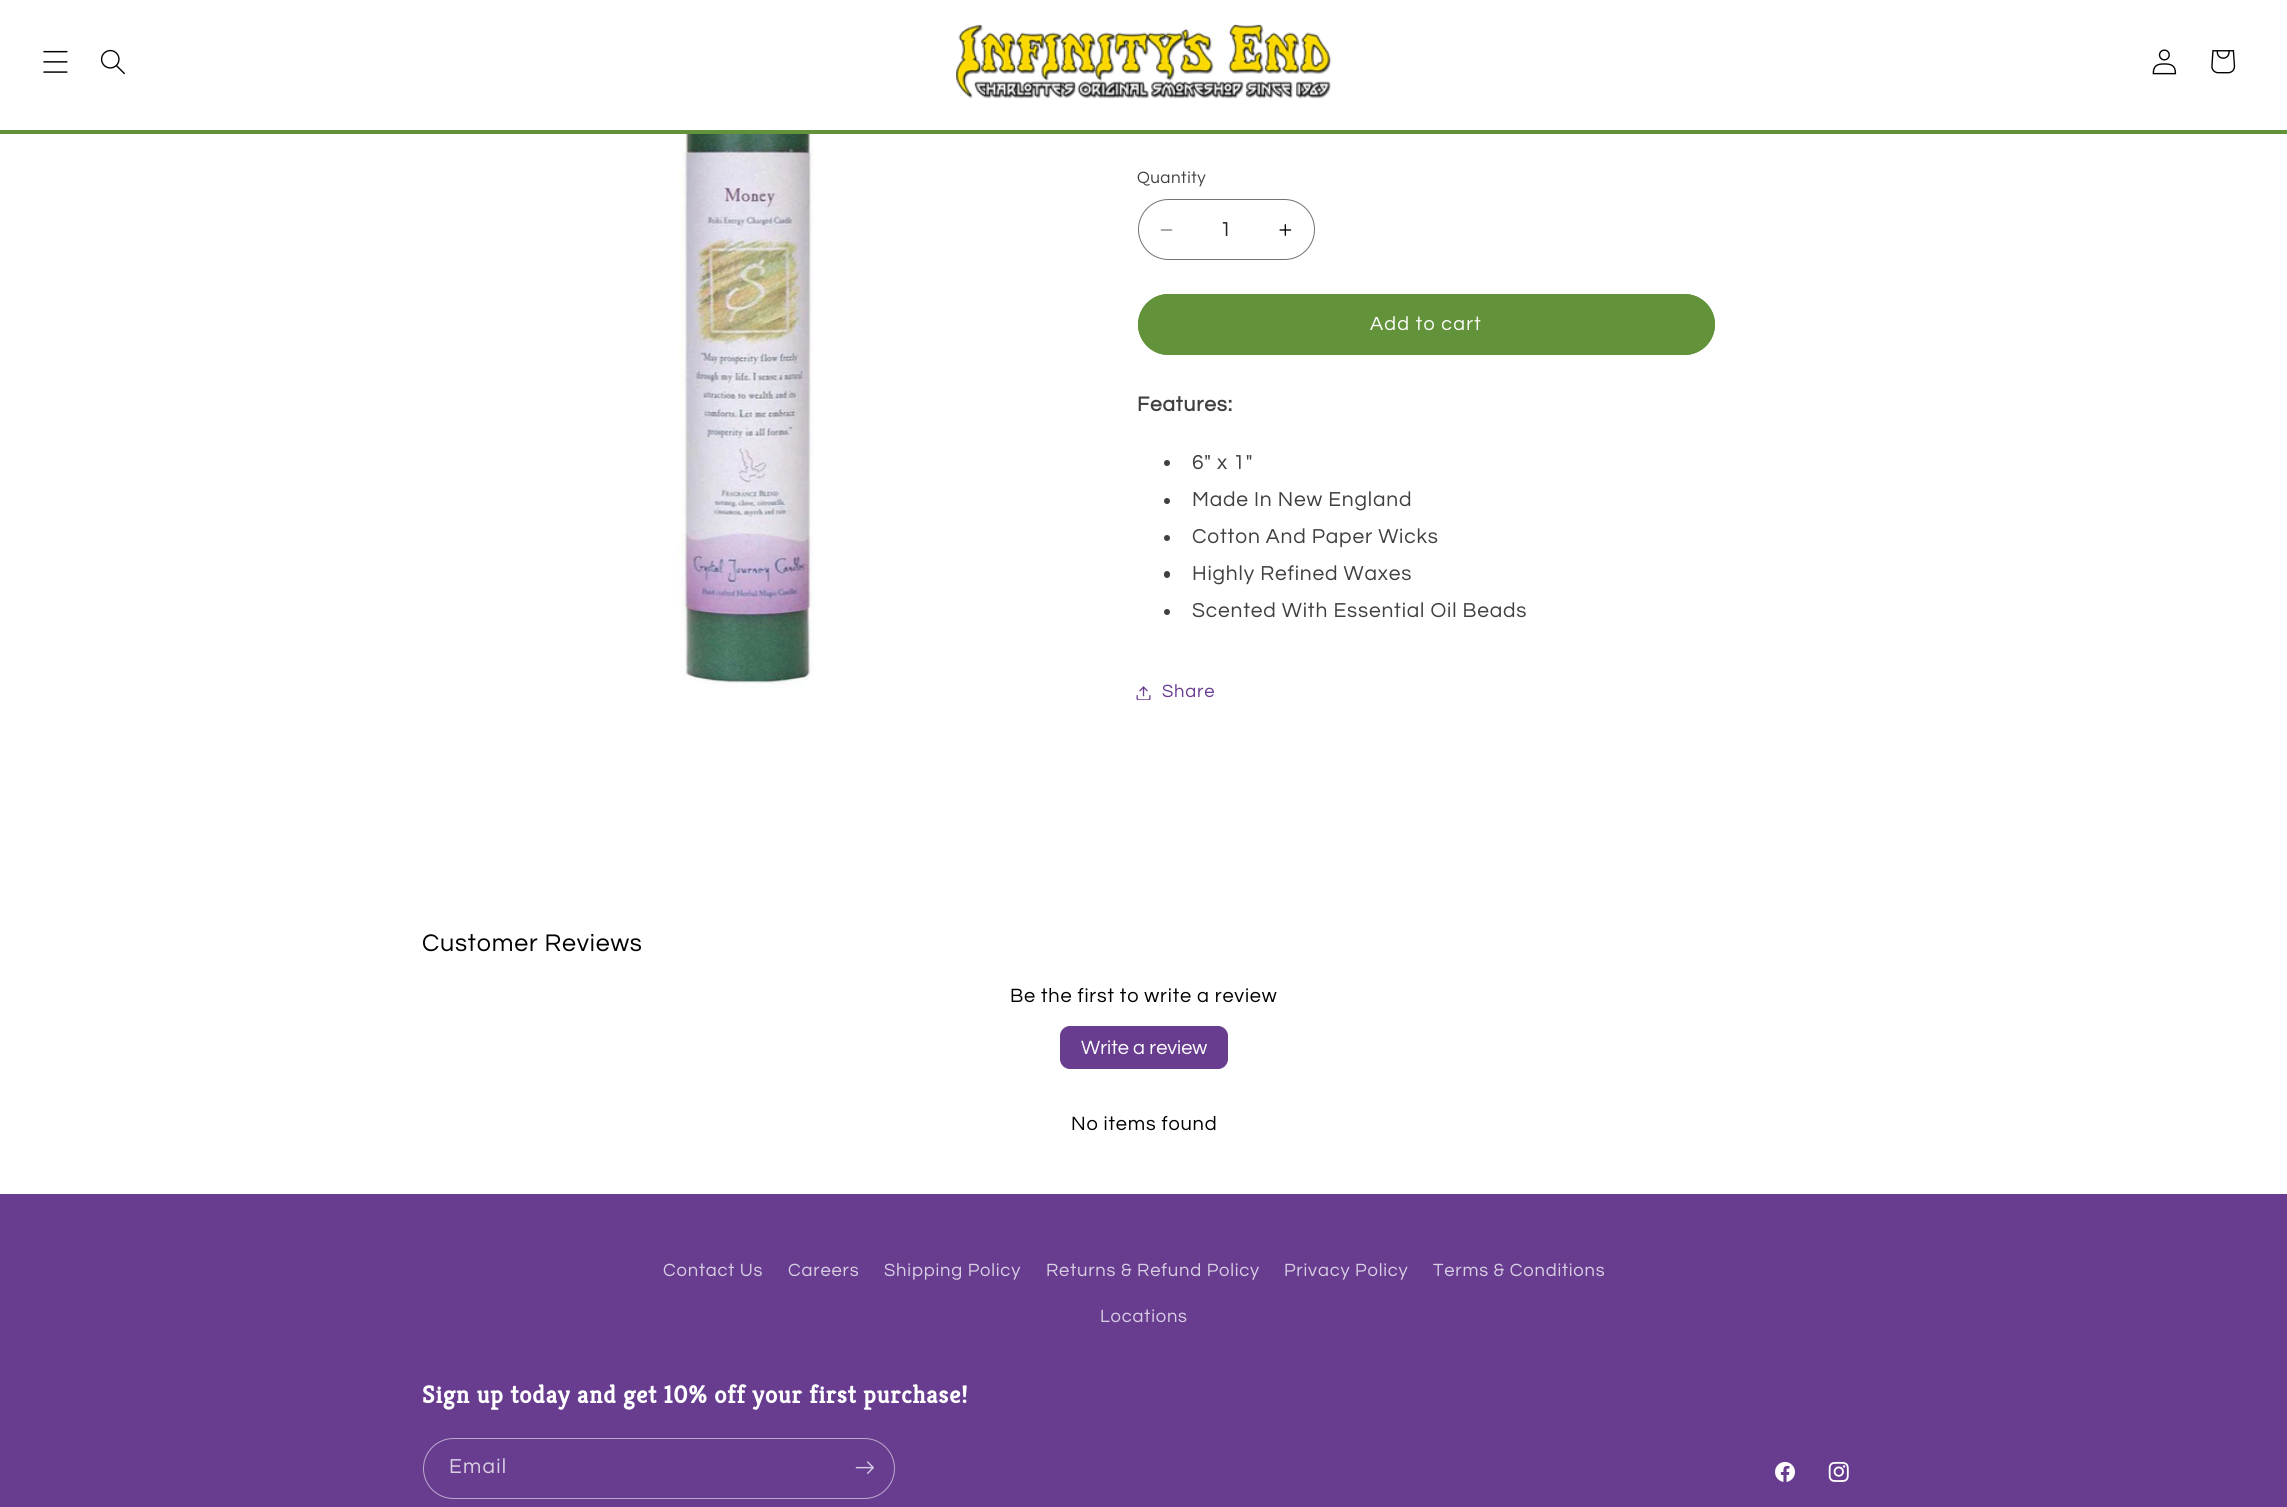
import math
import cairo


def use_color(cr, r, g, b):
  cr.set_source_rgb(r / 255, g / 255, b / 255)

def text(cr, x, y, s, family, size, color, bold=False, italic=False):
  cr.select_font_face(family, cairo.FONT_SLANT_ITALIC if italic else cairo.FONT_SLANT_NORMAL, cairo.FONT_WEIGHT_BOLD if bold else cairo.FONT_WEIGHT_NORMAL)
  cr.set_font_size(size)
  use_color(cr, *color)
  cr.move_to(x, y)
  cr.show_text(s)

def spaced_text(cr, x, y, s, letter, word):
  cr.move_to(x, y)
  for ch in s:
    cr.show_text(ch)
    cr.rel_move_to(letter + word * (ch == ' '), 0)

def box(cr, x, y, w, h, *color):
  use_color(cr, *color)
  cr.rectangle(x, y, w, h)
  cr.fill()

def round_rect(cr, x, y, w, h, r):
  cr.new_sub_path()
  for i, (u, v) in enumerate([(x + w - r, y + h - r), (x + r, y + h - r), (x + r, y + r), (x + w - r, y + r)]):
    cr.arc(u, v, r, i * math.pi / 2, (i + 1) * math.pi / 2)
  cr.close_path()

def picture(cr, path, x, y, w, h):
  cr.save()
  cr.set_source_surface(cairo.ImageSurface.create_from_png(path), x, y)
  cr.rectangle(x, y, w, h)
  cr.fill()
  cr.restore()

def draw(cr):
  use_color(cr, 255, 255, 255)
  cr.paint()
  box(cr, 0, 130, 2287, 4, 98, 147, 58)
  picture(cr, "img_01.png", 43, 50, 25, 23)
  picture(cr, "img_02.png", 100, 49, 25, 26)
  picture(cr, "img_03.png", 956, 24, 376, 75)
  picture(cr, "img_04.png", 2152, 49, 25, 26)
  picture(cr, "img_05.png", 2211, 50, 25, 24)
  picture(cr, "img_06.png", 678, 134, 136, 554)
  picture(cr, "img_07.png", 1160, 229, 13, 2)
  picture(cr, "img_08.png", 1279, 224, 13, 12)
  round_rect(cr, 1138.5, 199.5, 176, 60, 30)
  use_color(cr, 115, 115, 115)
  cr.set_line_width(1)
  cr.stroke()
  use_color(cr, 98, 147, 58)
  round_rect(cr, 1138, 294, 577, 61, 30.5)
  cr.fill()
  round_rect(cr, 1138.5, 294.5, 576, 60, 30)
  cr.stroke()
  use_color(cr, 64, 64, 64)
  cr.arc(1167, 463, 3, 0, 2 * math.pi)
  cr.fill()
  cr.arc(1167, 501, 3, 0, 2 * math.pi)
  cr.fill()
  cr.arc(1167, 538, 3, 0, 2 * math.pi)
  cr.fill()
  round_rect(cr, 1164, 571, 6, 7, 3)
  cr.fill()
  cr.arc(1167, 612, 3, 0, 2 * math.pi)
  cr.fill()
  picture(cr, "img_09.png", 1136, 686, 15, 14)
  use_color(cr, 104, 61, 144)
  round_rect(cr, 1060.5, 1026.5, 167, 42, 9.5)
  cr.fill_preserve()
  cr.stroke()
  box(cr, 0, 1194, 2287, 313, 104, 61, 144)
  round_rect(cr, 423.5, 1438.5, 471, 60, 30)
  use_color(cr, 187, 168, 205)
  cr.stroke()
  picture(cr, "img_10.png", 855, 1461, 19, 13)
  picture(cr, "img_11.png", 1775, 1461, 20, 21)
  picture(cr, "img_12.png", 1828, 1461, 21, 21)
  cr.select_font_face("Questrial")
  cr.set_font_size(17)
  use_color(cr, 64, 64, 64)
  spaced_text(cr, 1137, 183, "Quantity", 0.5, 0)
  text(cr, 1220, 236, "1", "Questrial", 21, (38, 38, 38))
  cr.set_font_size(19.75)
  use_color(cr, 255, 255, 255)
  spaced_text(cr, 1370, 330, "Add to cart", 1.25, 0)
  cr.select_font_face("Questrial", cairo.FONT_SLANT_NORMAL, cairo.FONT_WEIGHT_BOLD)
  cr.set_font_size(21)
  use_color(cr, 64, 64, 64)
  spaced_text(cr, 1137, 411, "Features:", 0.8, 0)
  cr.select_font_face("Questrial")
  spaced_text(cr, 1192, 469, "6\" x 1\"", 0.8, 0)
  spaced_text(cr, 1192, 506, "Made In New England", 0.8, 0)
  spaced_text(cr, 1192, 543, "Cotton And Paper Wicks", 0.8, 0)
  spaced_text(cr, 1192, 580, "Highly Refined Waxes", 0.8, 0)
  spaced_text(cr, 1192, 617, "Scented With Essential Oil Beads", 0.8, 0)
  cr.set_font_size(18.4)
  use_color(cr, 104, 61, 144)
  spaced_text(cr, 1162, 697, "Share", 0.8, 0)
  cr.set_font_size(25)
  use_color(cr, 0, 0, 0)
  spaced_text(cr, 422, 951, "Customer Reviews", 0.8, 0)
  cr.set_font_size(20)
  spaced_text(cr, 1010, 1002, "Be the first to write a review", 0.8, 0)
  text(cr, 1081, 1054, "Write a review", "Questrial", 20, (255, 255, 255))
  use_color(cr, 0, 0, 0)
  spaced_text(cr, 1071, 1130, "No items found", 0.8, 0)
  cr.set_font_size(18.4)
  use_color(cr, 217, 207, 227)
  spaced_text(cr, 663, 1276, "Contact Us", 0.8, 0)
  spaced_text(cr, 788, 1276, "Careers", 0.8, 0)
  spaced_text(cr, 884, 1276, "Shipping Policy", 0.8, 0)
  spaced_text(cr, 1046, 1276, "Returns & Refund Policy", 0.8, 0)
  spaced_text(cr, 1284, 1276, "Privacy Policy", 0.8, 0)
  spaced_text(cr, 1433, 1276, "Terms & Conditions", 0.8, 0)
  spaced_text(cr, 1100, 1322, "Locations", 0.8, 0)
  cr.select_font_face("Kreon", cairo.FONT_SLANT_NORMAL, cairo.FONT_WEIGHT_BOLD)
  cr.set_font_size(24.75)
  use_color(cr, 255, 255, 255)
  spaced_text(cr, 422, 1403, "Sign up today and get 10% off your first purchase!", 0.83, 0)
  cr.select_font_face("Questrial")
  cr.set_font_size(21)
  use_color(cr, 217, 207, 227)
  spaced_text(cr, 449, 1473, "Email", 1.25, 0)


surface = cairo.ImageSurface(cairo.FORMAT_RGB24, 2287, 1507)
cr = cairo.Context(surface)
options = cairo.FontOptions()
options.set_hint_metrics(cairo.HINT_METRICS_OFF)
options.set_hint_style(cairo.HINT_STYLE_NONE)
cr.set_font_options(options)
cr.set_miter_limit(4)
draw(cr)
surface.write_to_png("out.png")
